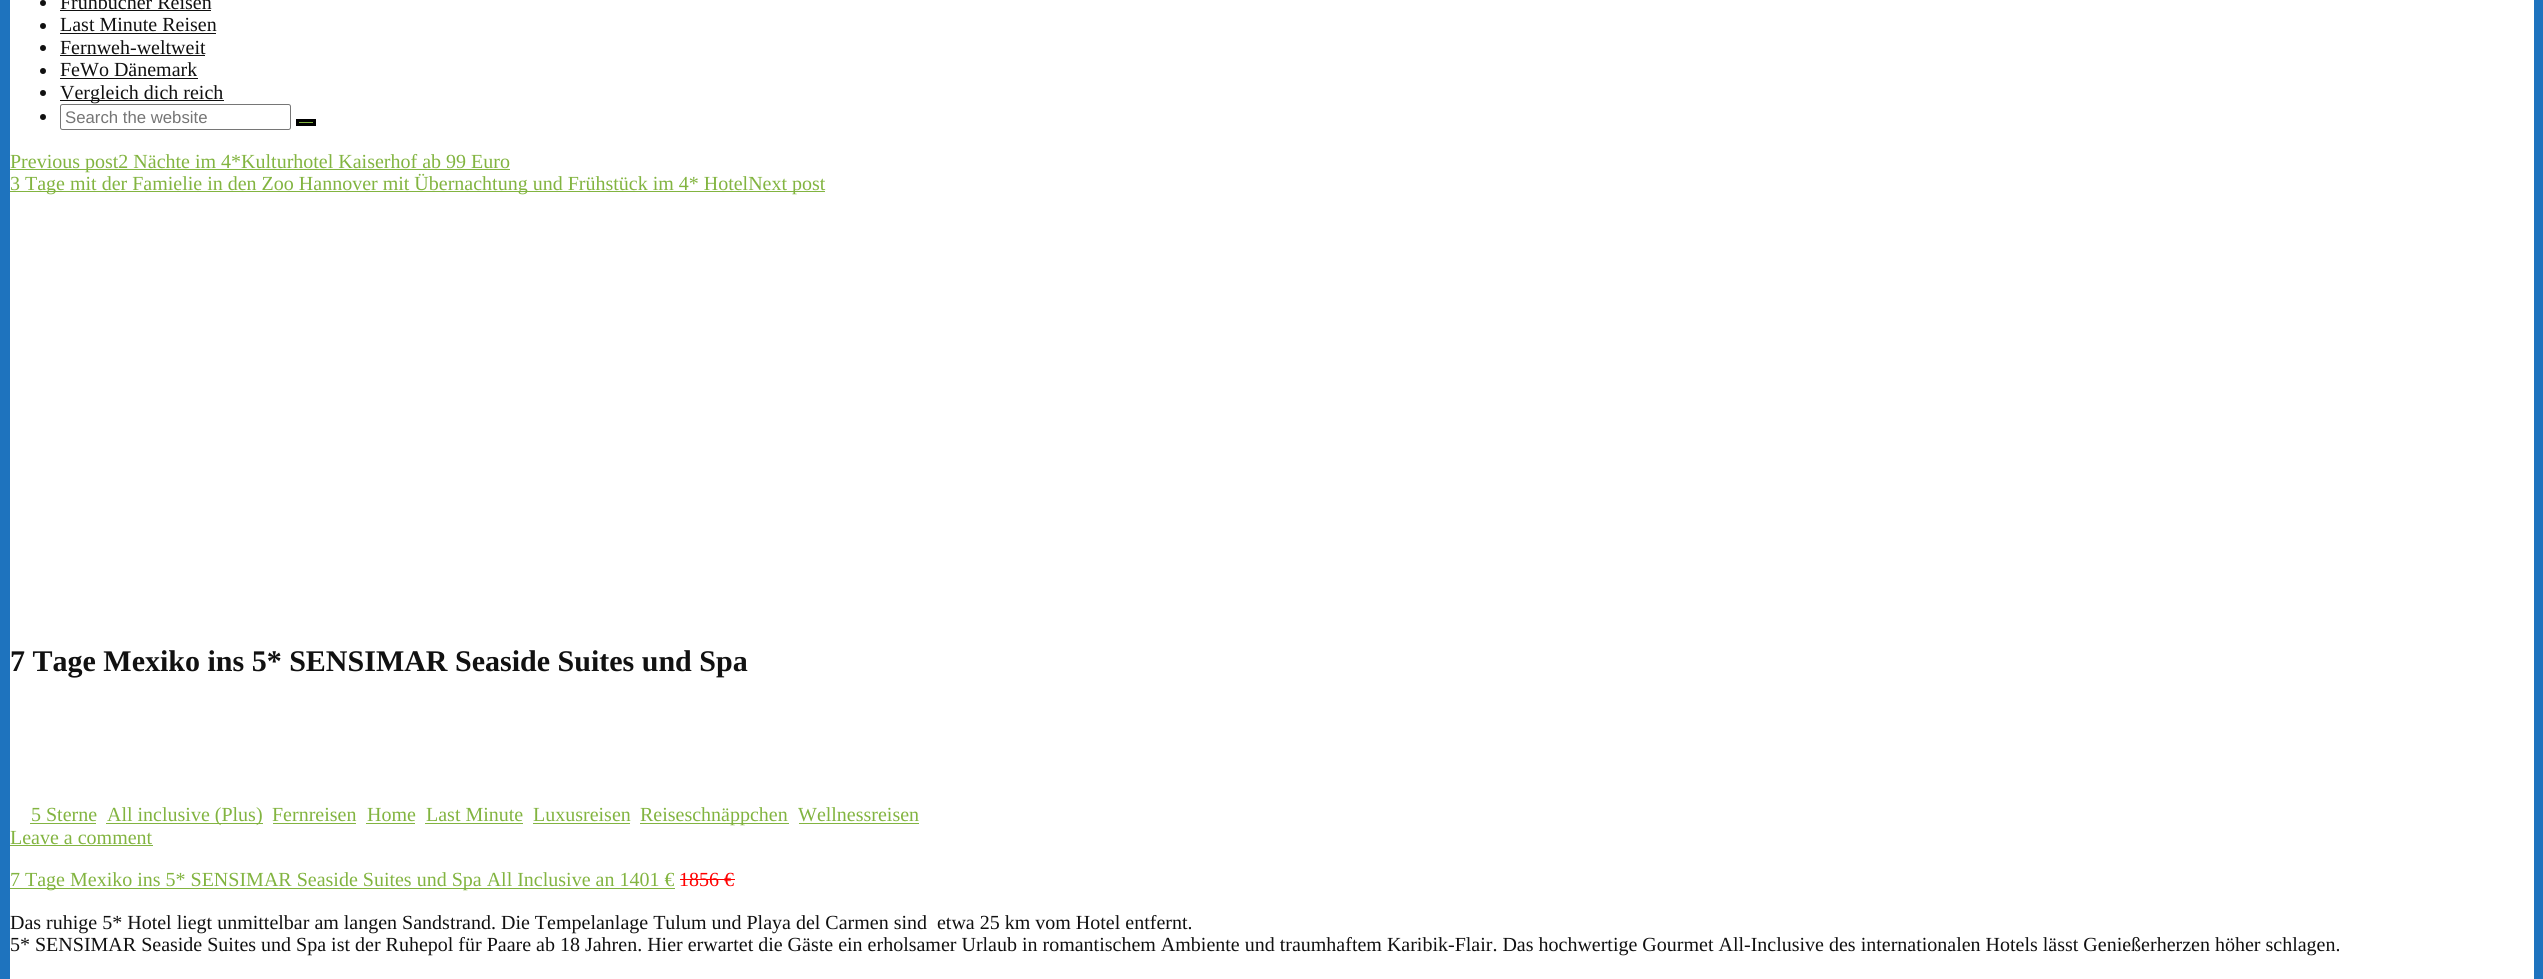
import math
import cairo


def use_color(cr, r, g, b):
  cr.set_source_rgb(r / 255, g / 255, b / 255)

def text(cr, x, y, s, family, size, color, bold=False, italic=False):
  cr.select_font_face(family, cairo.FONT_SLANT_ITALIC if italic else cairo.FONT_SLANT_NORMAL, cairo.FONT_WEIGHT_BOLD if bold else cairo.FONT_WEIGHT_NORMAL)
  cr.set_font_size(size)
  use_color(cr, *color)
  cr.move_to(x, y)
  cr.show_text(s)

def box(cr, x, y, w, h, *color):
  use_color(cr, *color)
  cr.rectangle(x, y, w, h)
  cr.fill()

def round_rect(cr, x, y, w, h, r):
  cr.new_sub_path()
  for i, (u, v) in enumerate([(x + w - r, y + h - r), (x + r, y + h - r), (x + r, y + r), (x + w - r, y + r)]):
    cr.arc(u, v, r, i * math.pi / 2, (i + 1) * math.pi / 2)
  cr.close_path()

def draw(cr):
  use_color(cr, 30, 115, 190)
  cr.paint()
  box(cr, 10, 0, 2524, 979, 255, 255, 255)
  use_color(cr, 17, 17, 17)
  cr.arc(43, 3, 3, 0, 2 * math.pi)
  cr.fill()
  box(cr, 60, 10, 151, 1, 17, 17, 17)
  cr.arc(43, 26, 3, 0, 2 * math.pi)
  cr.fill()
  box(cr, 60, 33, 156, 1, 17, 17, 17)
  cr.arc(43, 48, 3, 0, 2 * math.pi)
  cr.fill()
  box(cr, 60, 55, 145, 1, 17, 17, 17)
  cr.arc(43, 71, 3, 0, 2 * math.pi)
  cr.fill()
  box(cr, 60, 78, 138, 1, 17, 17, 17)
  cr.arc(43, 93, 3, 0, 2 * math.pi)
  cr.fill()
  box(cr, 60, 100, 164, 1, 17, 17, 17)
  cr.arc(43, 117, 3, 0, 2 * math.pi)
  cr.fill()
  round_rect(cr, 60.5, 104.5, 230, 25, 2)
  use_color(cr, 118, 118, 118)
  cr.set_line_width(1)
  cr.stroke()
  use_color(cr, 130, 180, 64)
  cr.rectangle(297.5, 120.5, 17, 4)
  cr.fill_preserve()
  use_color(cr, 0, 0, 0)
  cr.set_line_width(3)
  cr.stroke()
  box(cr, 10, 169, 500, 1, 130, 180, 64)
  box(cr, 10, 191, 815, 1, 130, 180, 64)
  box(cr, 30, 823, 66, 1, 130, 180, 64)
  box(cr, 106, 823, 157, 1, 130, 180, 64)
  box(cr, 273, 823, 83, 1, 130, 180, 64)
  box(cr, 366, 823, 49, 1, 130, 180, 64)
  box(cr, 425, 823, 98, 1, 130, 180, 64)
  box(cr, 533, 823, 97, 1, 130, 180, 64)
  box(cr, 640, 823, 149, 1, 130, 180, 64)
  box(cr, 799, 823, 120, 1, 130, 180, 64)
  box(cr, 10, 845, 143, 1, 130, 180, 64)
  box(cr, 10, 888, 665, 1, 130, 180, 64)
  box(cr, 680, 879, 55, 1, 255, 0, 0)
  text(cr, 60, 9, "Frühbucher Reisen", "Liberation Serif", 20, (17, 17, 17))
  text(cr, 60, 31, "Last Minute Reisen", "Liberation Serif", 20, (17, 17, 17))
  text(cr, 60, 54, "Fernweh-weltweit", "Liberation Serif", 20, (17, 17, 17))
  text(cr, 60, 76, "FeWo Dänemark", "Liberation Serif", 20, (17, 17, 17))
  text(cr, 60, 99, "Vergleich dich reich", "Liberation Serif", 20, (17, 17, 17))
  text(cr, 65, 123, "Search the website", "Liberation Sans", 16.75, (117, 117, 117))
  text(cr, 10, 168, "Previous post2 Nächte im 4*Kulturhotel Kaiserhof ab 99 Euro", "Liberation Serif", 20, (130, 180, 64))
  text(cr, 10, 190, "3 Tage mit der Famielie in den Zoo Hannover mit Übernachtung und Frühstück im 4* HotelNext post", "Liberation Serif", 20, (130, 180, 64))
  text(cr, 10, 671, "7 Tage Mexiko ins 5* SENSIMAR Seaside Suites und Spa", "Liberation Serif", 30, (17, 17, 17), bold=True)
  text(cr, 31, 821, "5 Sterne", "Liberation Serif", 20, (130, 180, 64))
  text(cr, 107, 821, "All inclusive (Plus)", "Liberation Serif", 20, (130, 180, 64))
  text(cr, 272, 821, "Fernreisen", "Liberation Serif", 20, (130, 180, 64))
  text(cr, 367, 821, "Home", "Liberation Serif", 20, (130, 180, 64))
  text(cr, 426, 821, "Last Minute", "Liberation Serif", 20, (130, 180, 64))
  text(cr, 533, 821, "Luxusreisen", "Liberation Serif", 20, (130, 180, 64))
  text(cr, 640, 821, "Reiseschnäppchen", "Liberation Serif", 20, (130, 180, 64))
  text(cr, 798, 821, "Wellnessreisen", "Liberation Serif", 20, (130, 180, 64))
  text(cr, 10, 844, "Leave a comment", "Liberation Serif", 20, (130, 180, 64))
  text(cr, 10, 886, "7 Tage Mexiko ins 5* SENSIMAR Seaside Suites und Spa All Inclusive an 1401 €", "Liberation Serif", 20, (130, 180, 64))
  text(cr, 679, 886, "1856 €", "Liberation Serif", 20, (255, 0, 0))
  text(cr, 10, 929, "Das ruhige 5* Hotel liegt unmittelbar am langen Sandstrand. Die Tempelanlage Tulum und Playa del Carmen sind  etwa 25 km vom Hotel entfernt.", "Liberation Serif", 20, (17, 17, 17))
  text(cr, 10, 951, "5* SENSIMAR Seaside Suites und Spa ist der Ruhepol für Paare ab 18 Jahren. Hier erwartet die Gäste ein erholsamer Urlaub in romantischem Ambiente und traumhaftem Karibik-Flair. Das hochwertige Gourmet All-Inclusive des internationalen Hotels lässt Genießerherzen höher schlagen.", "Liberation Serif", 20, (17, 17, 17))


surface = cairo.ImageSurface(cairo.FORMAT_RGB24, 2543, 979)
cr = cairo.Context(surface)
options = cairo.FontOptions()
options.set_hint_metrics(cairo.HINT_METRICS_OFF)
options.set_hint_style(cairo.HINT_STYLE_NONE)
cr.set_font_options(options)
cr.set_miter_limit(4)
draw(cr)
surface.write_to_png("out.png")
